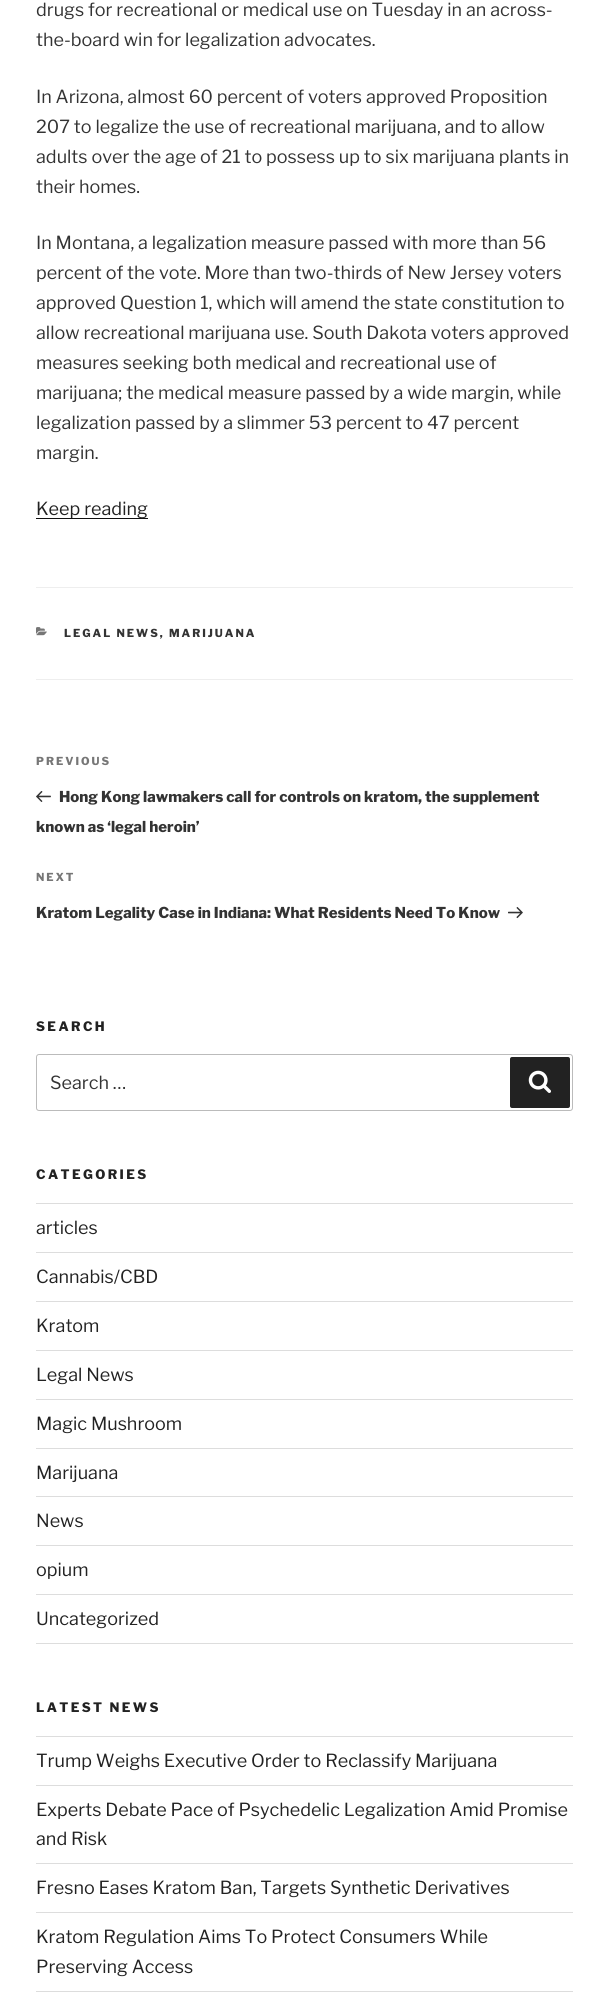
import math
import cairo


def use_color(cr, r, g, b):
  cr.set_source_rgb(r / 255, g / 255, b / 255)

def text(cr, x, y, s, family, size, color, bold=False, italic=False):
  cr.select_font_face(family, cairo.FONT_SLANT_ITALIC if italic else cairo.FONT_SLANT_NORMAL, cairo.FONT_WEIGHT_BOLD if bold else cairo.FONT_WEIGHT_NORMAL)
  cr.set_font_size(size)
  use_color(cr, *color)
  cr.move_to(x, y)
  cr.show_text(s)

def spaced_text(cr, x, y, s, letter, word):
  cr.move_to(x, y)
  for ch in s:
    cr.show_text(ch)
    cr.rel_move_to(letter + word * (ch == ' '), 0)

def box(cr, x, y, w, h, *color):
  use_color(cr, *color)
  cr.rectangle(x, y, w, h)
  cr.fill()

def round_rect(cr, x, y, w, h, r):
  cr.new_sub_path()
  for i, (u, v) in enumerate([(x + w - r, y + h - r), (x + r, y + h - r), (x + r, y + r), (x + w - r, y + r)]):
    cr.arc(u, v, r, i * math.pi / 2, (i + 1) * math.pi / 2)
  cr.close_path()

def picture(cr, path, x, y, w, h):
  cr.save()
  cr.set_source_surface(cairo.ImageSurface.create_from_png(path), x, y)
  cr.rectangle(x, y, w, h)
  cr.fill()
  cr.restore()

def draw(cr):
  use_color(cr, 255, 255, 255)
  cr.paint()
  box(cr, 36, 518, 112, 1, 15, 15, 15)
  box(cr, 36, 587, 537, 1, 238, 238, 238)
  box(cr, 36, 679, 537, 1, 238, 238, 238)
  picture(cr, "img_01.png", 36, 627, 11, 9)
  picture(cr, "img_02.png", 36, 791, 15, 11)
  picture(cr, "img_03.png", 508, 907, 15, 12)
  round_rect(cr, 36.5, 1054.5, 536, 56, 2.5)
  use_color(cr, 187, 187, 187)
  cr.set_line_width(1)
  cr.stroke()
  use_color(cr, 34, 34, 34)
  round_rect(cr, 510, 1057, 60, 51, 2)
  cr.fill()
  picture(cr, "img_04.png", 528, 1070, 23, 23)
  box(cr, 36, 1203, 537, 1, 221, 221, 221)
  box(cr, 36, 1252, 537, 1, 221, 221, 221)
  box(cr, 36, 1301, 537, 1, 221, 221, 221)
  box(cr, 36, 1350, 537, 1, 221, 221, 221)
  box(cr, 36, 1399, 537, 1, 221, 221, 221)
  box(cr, 36, 1448, 537, 1, 221, 221, 221)
  box(cr, 36, 1496, 537, 1, 221, 221, 221)
  box(cr, 36, 1545, 537, 1, 221, 221, 221)
  box(cr, 36, 1594, 537, 1, 221, 221, 221)
  box(cr, 36, 1643, 537, 1, 221, 221, 221)
  box(cr, 36, 1736, 537, 1, 221, 221, 221)
  box(cr, 36, 1785, 537, 1, 221, 221, 221)
  box(cr, 36, 1863, 537, 1, 221, 221, 221)
  box(cr, 36, 1912, 537, 1, 221, 221, 221)
  box(cr, 36, 1991, 537, 1, 221, 221, 221)
  text(cr, 36, 16, "drugs for recreational or medical use on Tuesday in an across-", "Libre Franklin Thin", 18, (51, 51, 51))
  text(cr, 36, 46, "the-board win for legalization advocates.", "Libre Franklin Thin", 18, (51, 51, 51))
  text(cr, 36, 103, "In Arizona, almost 60 percent of voters approved Proposition", "Libre Franklin Thin", 18, (51, 51, 51))
  text(cr, 36, 133, "207 to legalize the use of recreational marijuana, and to allow", "Libre Franklin Thin", 18, (51, 51, 51))
  text(cr, 36, 163, "adults over the age of 21 to possess up to six marijuana plants in", "Libre Franklin Thin", 18, (51, 51, 51))
  text(cr, 36, 193, "their homes.", "Libre Franklin Thin", 18, (51, 51, 51))
  text(cr, 36, 249, "In Montana, a legalization measure passed with more than 56", "Libre Franklin Thin", 18, (51, 51, 51))
  text(cr, 36, 279, "percent of the vote. More than two-thirds of New Jersey voters", "Libre Franklin Thin", 18, (51, 51, 51))
  text(cr, 36, 309, "approved Question 1, which will amend the state constitution to", "Libre Franklin Thin", 18, (51, 51, 51))
  text(cr, 36, 339, "allow recreational marijuana use. South Dakota voters approved", "Libre Franklin Thin", 18, (51, 51, 51))
  text(cr, 36, 369, "measures seeking both medical and recreational use of", "Libre Franklin Thin", 18, (51, 51, 51))
  text(cr, 36, 399, "marijuana; the medical measure passed by a wide margin, while", "Libre Franklin Thin", 18, (51, 51, 51))
  text(cr, 36, 429, "legalization passed by a slimmer 53 percent to 47 percent", "Libre Franklin Thin", 18, (51, 51, 51))
  text(cr, 36, 459, "margin.", "Libre Franklin Thin", 18, (51, 51, 51))
  text(cr, 36, 515, "Keep reading", "Libre Franklin Thin", 18, (34, 34, 34))
  cr.select_font_face("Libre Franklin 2 Thin")
  cr.set_font_size(11)
  use_color(cr, 51, 51, 51)
  spaced_text(cr, 64, 637, "LEGAL NEWS, MARIJUANA", 2, 0)
  use_color(cr, 118, 118, 118)
  spaced_text(cr, 36, 765, "PREVIOUS", 2, 0)
  text(cr, 59, 802, "Hong Kong lawmakers call for controls on kratom, the supplement", "Libre Franklin 2 Thin", 15, (51, 51, 51))
  text(cr, 36, 832, "known as ‘legal heroin’", "Libre Franklin 2 Thin", 15, (51, 51, 51))
  cr.set_font_size(11)
  use_color(cr, 118, 118, 118)
  spaced_text(cr, 36, 881, "NEXT", 2, 0)
  text(cr, 36, 918, "Kratom Legality Case in Indiana: What Residents Need To Know", "Libre Franklin 2 Thin", 15, (51, 51, 51))
  cr.set_font_size(13)
  use_color(cr, 34, 34, 34)
  spaced_text(cr, 36, 1031, "SEARCH", 2.4, 0)
  text(cr, 50, 1089, "Search …", "Libre Franklin Thin", 18, (51, 51, 51))
  cr.select_font_face("Libre Franklin 2 Thin")
  cr.set_font_size(13)
  use_color(cr, 34, 34, 34)
  spaced_text(cr, 36, 1179, "CATEGORIES", 2.4, 0)
  text(cr, 36, 1234, "articles", "Libre Franklin Thin", 18, (34, 34, 34))
  text(cr, 36, 1283, "Cannabis/CBD", "Libre Franklin Thin", 18, (34, 34, 34))
  text(cr, 36, 1332, "Kratom", "Libre Franklin Thin", 18, (34, 34, 34))
  text(cr, 36, 1381, "Legal News", "Libre Franklin Thin", 18, (34, 34, 34))
  text(cr, 36, 1430, "Magic Mushroom", "Libre Franklin Thin", 18, (34, 34, 34))
  text(cr, 36, 1479, "Marijuana", "Libre Franklin Thin", 18, (34, 34, 34))
  text(cr, 36, 1527, "News", "Libre Franklin Thin", 18, (34, 34, 34))
  text(cr, 36, 1576, "opium", "Libre Franklin Thin", 18, (34, 34, 34))
  text(cr, 36, 1625, "Uncategorized", "Libre Franklin Thin", 18, (34, 34, 34))
  cr.select_font_face("Libre Franklin 2 Thin")
  cr.set_font_size(13)
  spaced_text(cr, 36, 1712, "LATEST NEWS", 2.4, 0)
  text(cr, 36, 1767, "Trump Weighs Executive Order to Reclassify Marijuana", "Libre Franklin Thin", 18, (34, 34, 34))
  text(cr, 36, 1816, "Experts Debate Pace of Psychedelic Legalization Amid Promise", "Libre Franklin Thin", 18, (34, 34, 34))
  text(cr, 36, 1845, "and Risk", "Libre Franklin Thin", 18, (34, 34, 34))
  text(cr, 36, 1894, "Fresno Eases Kratom Ban, Targets Synthetic Derivatives", "Libre Franklin Thin", 18, (34, 34, 34))
  text(cr, 36, 1943, "Kratom Regulation Aims To Protect Consumers While", "Libre Franklin Thin", 18, (34, 34, 34))
  text(cr, 36, 1973, "Preserving Access", "Libre Franklin Thin", 18, (34, 34, 34))


surface = cairo.ImageSurface(cairo.FORMAT_RGB24, 609, 2004)
cr = cairo.Context(surface)
options = cairo.FontOptions()
options.set_hint_metrics(cairo.HINT_METRICS_OFF)
options.set_hint_style(cairo.HINT_STYLE_NONE)
cr.set_font_options(options)
cr.set_miter_limit(4)
draw(cr)
surface.write_to_png("out.png")
